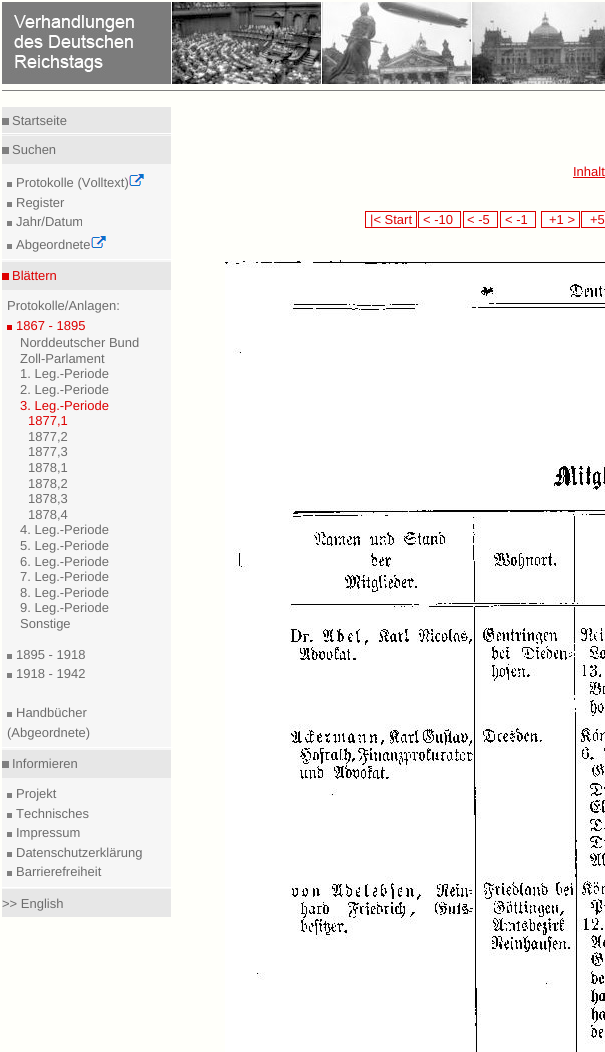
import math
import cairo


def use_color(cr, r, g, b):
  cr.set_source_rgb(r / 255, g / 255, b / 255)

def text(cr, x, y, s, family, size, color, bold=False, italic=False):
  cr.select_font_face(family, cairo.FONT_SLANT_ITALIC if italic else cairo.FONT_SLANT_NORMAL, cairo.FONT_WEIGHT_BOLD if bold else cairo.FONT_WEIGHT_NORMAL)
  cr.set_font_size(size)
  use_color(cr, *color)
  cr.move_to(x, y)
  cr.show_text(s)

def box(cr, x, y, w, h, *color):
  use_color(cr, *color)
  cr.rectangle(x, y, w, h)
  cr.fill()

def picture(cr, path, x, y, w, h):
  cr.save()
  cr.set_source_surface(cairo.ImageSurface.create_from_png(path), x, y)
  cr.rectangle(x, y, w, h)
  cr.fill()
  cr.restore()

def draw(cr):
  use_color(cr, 255, 255, 250)
  cr.paint()
  picture(cr, "img_01.png", 2, 2, 603, 82)
  box(cr, 2, 90, 603, 1, 128, 128, 128)
  box(cr, 2, 135, 169, 754, 246, 246, 246)
  box(cr, 2, 107, 169, 28, 231, 231, 231)
  box(cr, 2, 118, 7, 7, 128, 128, 128)
  box(cr, 0, 133, 173, 1, 255, 255, 255)
  box(cr, 2, 136, 169, 28, 231, 231, 231)
  box(cr, 2, 147, 7, 7, 128, 128, 128)
  box(cr, 7, 182, 5, 5, 128, 128, 128)
  picture(cr, "img_02.png", 129, 174, 15, 12)
  box(cr, 7, 202, 5, 5, 128, 128, 128)
  box(cr, 7, 221, 5, 5, 128, 128, 128)
  box(cr, 7, 244, 5, 5, 128, 128, 128)
  picture(cr, "img_02.png", 91, 236, 15, 12)
  box(cr, 0, 259, 173, 1, 255, 255, 255)
  box(cr, 2, 262, 169, 28, 231, 231, 231)
  box(cr, 2, 273, 7, 7, 222, 0, 0)
  box(cr, 7, 325, 5, 5, 222, 0, 0)
  box(cr, 7, 654, 5, 5, 128, 128, 128)
  box(cr, 7, 673, 5, 5, 128, 128, 128)
  box(cr, 7, 712, 5, 5, 128, 128, 128)
  box(cr, 0, 747, 173, 1, 255, 255, 255)
  box(cr, 2, 750, 169, 28, 231, 231, 231)
  box(cr, 2, 761, 7, 7, 128, 128, 128)
  box(cr, 7, 793, 5, 5, 128, 128, 128)
  box(cr, 7, 813, 5, 5, 128, 128, 128)
  box(cr, 7, 832, 5, 5, 128, 128, 128)
  box(cr, 7, 852, 5, 5, 128, 128, 128)
  box(cr, 7, 871, 5, 5, 128, 128, 128)
  box(cr, 0, 887, 173, 1, 255, 255, 255)
  box(cr, 2, 889, 169, 28, 231, 231, 231)
  box(cr, 573, 164, 32, 15, 255, 255, 255)
  box(cr, 573, 177, 32, 1, 221, 0, 0)
  box(cr, 366, 212, 50, 15, 255, 255, 255)
  cr.rectangle(365.5, 211.5, 51, 16)
  use_color(cr, 221, 0, 0)
  cr.set_line_width(1)
  cr.stroke()
  box(cr, 419, 212, 41, 15, 255, 255, 255)
  cr.rectangle(418.5, 211.5, 42, 16)
  use_color(cr, 221, 0, 0)
  cr.stroke()
  box(cr, 464, 212, 33, 15, 255, 255, 255)
  cr.rectangle(463.5, 211.5, 34, 16)
  use_color(cr, 221, 0, 0)
  cr.stroke()
  box(cr, 501, 212, 34, 15, 255, 255, 255)
  cr.rectangle(500.5, 211.5, 35, 16)
  use_color(cr, 221, 0, 0)
  cr.stroke()
  box(cr, 542, 212, 37, 15, 255, 255, 255)
  cr.rectangle(541.5, 211.5, 38, 16)
  use_color(cr, 221, 0, 0)
  cr.stroke()
  box(cr, 582, 212, 23, 15, 255, 255, 255)
  cr.rectangle(581.5, 211.5, 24, 16)
  use_color(cr, 221, 0, 0)
  cr.stroke()
  picture(cr, "img_03.png", 225, 260, 380, 792)
  text(cr, 12, 125, "Startseite", "Liberation Sans", 13, (108, 108, 108))
  text(cr, 12, 154, "Suchen", "Liberation Sans", 13, (108, 108, 108))
  text(cr, 16, 187, "Protokolle (Volltext)", "Liberation Sans", 13, (108, 108, 108))
  text(cr, 16, 207, "Register", "Liberation Sans", 13, (108, 108, 108))
  text(cr, 16, 226, "Jahr/Datum", "Liberation Sans", 13, (108, 108, 108))
  text(cr, 16, 249, "Abgeordnete", "Liberation Sans", 13, (108, 108, 108))
  text(cr, 12, 280, "Blättern", "Liberation Sans", 13, (221, 0, 0))
  text(cr, 7, 310, "Protokolle/Anlagen:", "Liberation Sans", 13, (108, 108, 108))
  text(cr, 16, 330, "1867 - 1895", "Liberation Sans", 13, (221, 0, 0))
  text(cr, 20, 347, "Norddeutscher Bund", "Liberation Sans", 13, (108, 108, 108))
  text(cr, 20, 363, "Zoll-Parlament", "Liberation Sans", 13, (108, 108, 108))
  text(cr, 20, 378, "1. Leg.-Periode", "Liberation Sans", 13, (108, 108, 108))
  text(cr, 20, 394, "2. Leg.-Periode", "Liberation Sans", 13, (108, 108, 108))
  text(cr, 20, 410, "3. Leg.-Periode", "Liberation Sans", 13, (221, 0, 0))
  text(cr, 28, 425, "1877,1", "Liberation Sans", 13, (221, 0, 0))
  text(cr, 28, 441, "1877,2", "Liberation Sans", 13, (108, 108, 108))
  text(cr, 28, 456, "1877,3", "Liberation Sans", 13, (108, 108, 108))
  text(cr, 28, 472, "1878,1", "Liberation Sans", 13, (108, 108, 108))
  text(cr, 28, 488, "1878,2", "Liberation Sans", 13, (108, 108, 108))
  text(cr, 28, 503, "1878,3", "Liberation Sans", 13, (108, 108, 108))
  text(cr, 28, 519, "1878,4", "Liberation Sans", 13, (108, 108, 108))
  text(cr, 20, 534, "4. Leg.-Periode", "Liberation Sans", 13, (108, 108, 108))
  text(cr, 20, 550, "5. Leg.-Periode", "Liberation Sans", 13, (108, 108, 108))
  text(cr, 20, 566, "6. Leg.-Periode", "Liberation Sans", 13, (108, 108, 108))
  text(cr, 20, 581, "7. Leg.-Periode", "Liberation Sans", 13, (108, 108, 108))
  text(cr, 20, 597, "8. Leg.-Periode", "Liberation Sans", 13, (108, 108, 108))
  text(cr, 20, 612, "9. Leg.-Periode", "Liberation Sans", 13, (108, 108, 108))
  text(cr, 20, 628, "Sonstige", "Liberation Sans", 13, (108, 108, 108))
  text(cr, 16, 659, "1895 - 1918", "Liberation Sans", 13, (108, 108, 108))
  text(cr, 16, 678, "1918 - 1942", "Liberation Sans", 13, (108, 108, 108))
  text(cr, 16, 717, "Handbücher", "Liberation Sans", 13, (108, 108, 108))
  text(cr, 7, 737, "(Abgeordnete)", "Liberation Sans", 13, (108, 108, 108))
  text(cr, 12, 768, "Informieren", "Liberation Sans", 13, (108, 108, 108))
  text(cr, 16, 798, "Projekt", "Liberation Sans", 13, (108, 108, 108))
  text(cr, 16, 818, "Technisches", "Liberation Sans", 13, (108, 108, 108))
  text(cr, 16, 837, "Impressum", "Liberation Sans", 13, (108, 108, 108))
  text(cr, 16, 857, "Datenschutzerklärung", "Liberation Sans", 13, (108, 108, 108))
  text(cr, 16, 876, "Barrierefreiheit", "Liberation Sans", 13, (108, 108, 108))
  text(cr, 2, 908, ">> English", "Liberation Sans", 13, (108, 108, 108))
  text(cr, 573, 176, "Inhalt", "Liberation Sans", 13, (221, 0, 0))
  text(cr, 370, 224, "|< Start", "Liberation Sans", 13, (221, 0, 0))
  text(cr, 423, 224, "< -10", "Liberation Sans", 13, (221, 0, 0))
  text(cr, 467, 224, "< -5", "Liberation Sans", 13, (221, 0, 0))
  text(cr, 505, 224, "< -1", "Liberation Sans", 13, (221, 0, 0))
  text(cr, 549, 224, "+1 >", "Liberation Sans", 13, (221, 0, 0))
  text(cr, 590, 224, "+5", "Liberation Sans", 13, (221, 0, 0))


surface = cairo.ImageSurface(cairo.FORMAT_RGB24, 605, 1052)
cr = cairo.Context(surface)
options = cairo.FontOptions()
options.set_hint_metrics(cairo.HINT_METRICS_OFF)
options.set_hint_style(cairo.HINT_STYLE_NONE)
cr.set_font_options(options)
cr.set_miter_limit(4)
draw(cr)
surface.write_to_png("out.png")
